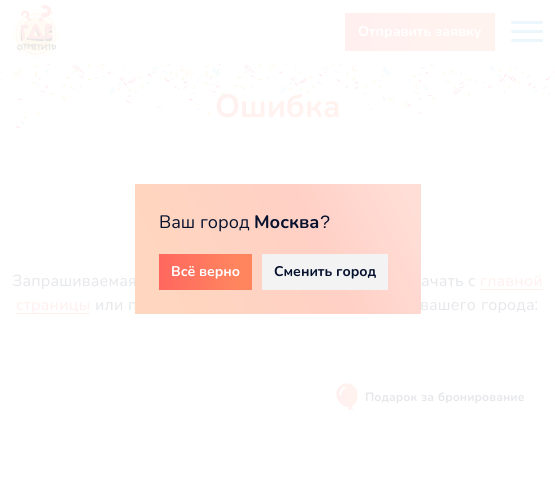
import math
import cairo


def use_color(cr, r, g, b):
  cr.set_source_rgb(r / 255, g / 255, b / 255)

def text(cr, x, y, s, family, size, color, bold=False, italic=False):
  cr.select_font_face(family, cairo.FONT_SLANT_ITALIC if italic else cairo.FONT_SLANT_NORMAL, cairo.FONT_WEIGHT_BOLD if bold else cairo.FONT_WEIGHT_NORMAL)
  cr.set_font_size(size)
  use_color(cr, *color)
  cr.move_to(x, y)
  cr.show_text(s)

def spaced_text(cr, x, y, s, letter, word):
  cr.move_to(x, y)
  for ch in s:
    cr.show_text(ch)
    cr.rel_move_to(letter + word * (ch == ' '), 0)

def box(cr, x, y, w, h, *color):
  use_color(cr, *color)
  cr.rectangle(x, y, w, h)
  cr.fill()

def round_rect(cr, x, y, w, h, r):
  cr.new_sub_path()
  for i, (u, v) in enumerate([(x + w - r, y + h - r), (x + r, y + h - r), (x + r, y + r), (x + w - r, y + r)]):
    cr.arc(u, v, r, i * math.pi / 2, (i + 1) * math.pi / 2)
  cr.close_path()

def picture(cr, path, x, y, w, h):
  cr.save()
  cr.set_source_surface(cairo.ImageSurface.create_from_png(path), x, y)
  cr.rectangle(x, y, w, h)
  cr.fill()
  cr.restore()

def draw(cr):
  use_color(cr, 255, 255, 255)
  cr.paint()
  picture(cr, "img_01.png", 12, 5, 48, 53)
  gradient = cairo.LinearGradient(345, 32, 495, 32)
  gradient.add_color_stop_rgba(0.02, 1, 0.941, 0.937, 1)
  gradient.add_color_stop_rgba(0.84, 1, 0.953, 0.937, 1)
  cr.set_source(gradient)
  cr.rectangle(345, 13, 150, 38)
  cr.fill()
  use_color(cr, 236, 246, 253)
  round_rect(cr, 511, 21, 32, 3, 1.5)
  cr.fill()
  round_rect(cr, 511, 30, 32, 3, 1.5)
  cr.fill()
  round_rect(cr, 511, 39, 32, 3, 1.5)
  cr.fill()
  picture(cr, "img_02.png", 0, 64, 555, 65)
  box(cr, 480, 289, 63, 1, 255, 240, 239)
  box(cr, 16, 313, 74, 1, 255, 240, 239)
  picture(cr, "img_03.png", 336, 383, 22, 28)
  text(cr, 358, 36, "Отправить", "Nunito", 14, (255, 255, 255), bold=True)
  text(cr, 435, 36, "заявку", "Nunito", 14, (255, 255, 255), bold=True)
  cr.set_font_size(32)
  gradient = cairo.LinearGradient(39, 106, 516, 106)
  gradient.add_color_stop_rgba(0.02, 1, 0.941, 0.937, 1)
  gradient.add_color_stop_rgba(0.84, 1, 0.953, 0.937, 1)
  cr.set_source(gradient)
  cr.move_to(215, 117)
  cr.show_text("Ошибка")
  cr.select_font_face("Nunito")
  cr.set_font_size(16)
  use_color(cr, 230, 231, 234)
  spaced_text(cr, 12, 286, "Запрашиваемая", 0.2, 0)
  spaced_text(cr, 421, 286, "ачать", 0.2, 0)
  spaced_text(cr, 468, 286, "с", 0.2, 0)
  use_color(cr, 255, 240, 239)
  spaced_text(cr, 480, 286, "главной", 0.2, 0)
  spaced_text(cr, 16, 310, "страницы", 0.2, 0)
  use_color(cr, 230, 231, 234)
  spaced_text(cr, 95, 310, "или", 0.2, 0)
  spaced_text(cr, 128, 310, "п", 0.2, 0)
  spaced_text(cr, 420, 310, "вашего", 0.2, 0)
  spaced_text(cr, 481, 310, "города", 0.2, 0)
  cr.select_font_face("Liberation Sans")
  spaced_text(cr, 534, 310, ":", 0.2, 0)
  cr.select_font_face("Nunito", cairo.FONT_SLANT_NORMAL, cairo.FONT_WEIGHT_BOLD)
  cr.set_font_size(12)
  spaced_text(cr, 365, 401, "Подарок", 0.1, 0)
  spaced_text(cr, 421, 401, "за", 0.1, 0)
  spaced_text(cr, 438, 401, "бронирование", 0.1, 0)
  gradient = cairo.LinearGradient(136, 315, 420, 183)
  gradient.add_color_stop_rgba(0.11, 1, 0.839, 0.749, 1)
  gradient.add_color_stop_rgba(0.63, 1, 0.816, 0.776, 1)
  gradient.add_color_stop_rgba(0.95, 1, 0.871, 0.843, 1)
  cr.set_source(gradient)
  cr.rectangle(135, 184, 286, 130)
  cr.fill()
  text(cr, 159, 228, "Ваш", "Nunito", 18, (6, 17, 46))
  text(cr, 200, 228, "город", "Nunito", 18, (6, 17, 46))
  text(cr, 254, 228, "Москва", "Nunito", 18, (6, 17, 46), bold=True)
  text(cr, 320, 228, "?", "Liberation Sans", 18, (6, 17, 46))
  gradient = cairo.LinearGradient(159, 272, 252, 272)
  gradient.add_color_stop_rgba(0.02, 1, 0.408, 0.373, 1)
  gradient.add_color_stop_rgba(0.84, 1, 0.522, 0.373, 1)
  cr.set_source(gradient)
  cr.rectangle(159, 254, 93, 36)
  cr.fill()
  text(cr, 171, 276, "Всё", "Nunito", 14, (255, 255, 255), bold=True)
  text(cr, 199, 276, "верно", "Nunito", 14, (255, 255, 255), bold=True)
  box(cr, 262, 254, 126, 36, 243, 243, 243)
  text(cr, 274, 276, "Сменить", "Nunito", 14, (6, 17, 46), bold=True)
  text(cr, 336, 276, "город", "Nunito", 14, (6, 17, 46), bold=True)


surface = cairo.ImageSurface(cairo.FORMAT_RGB24, 555, 498)
cr = cairo.Context(surface)
options = cairo.FontOptions()
options.set_hint_metrics(cairo.HINT_METRICS_OFF)
options.set_hint_style(cairo.HINT_STYLE_NONE)
cr.set_font_options(options)
cr.set_miter_limit(4)
draw(cr)
surface.write_to_png("out.png")
